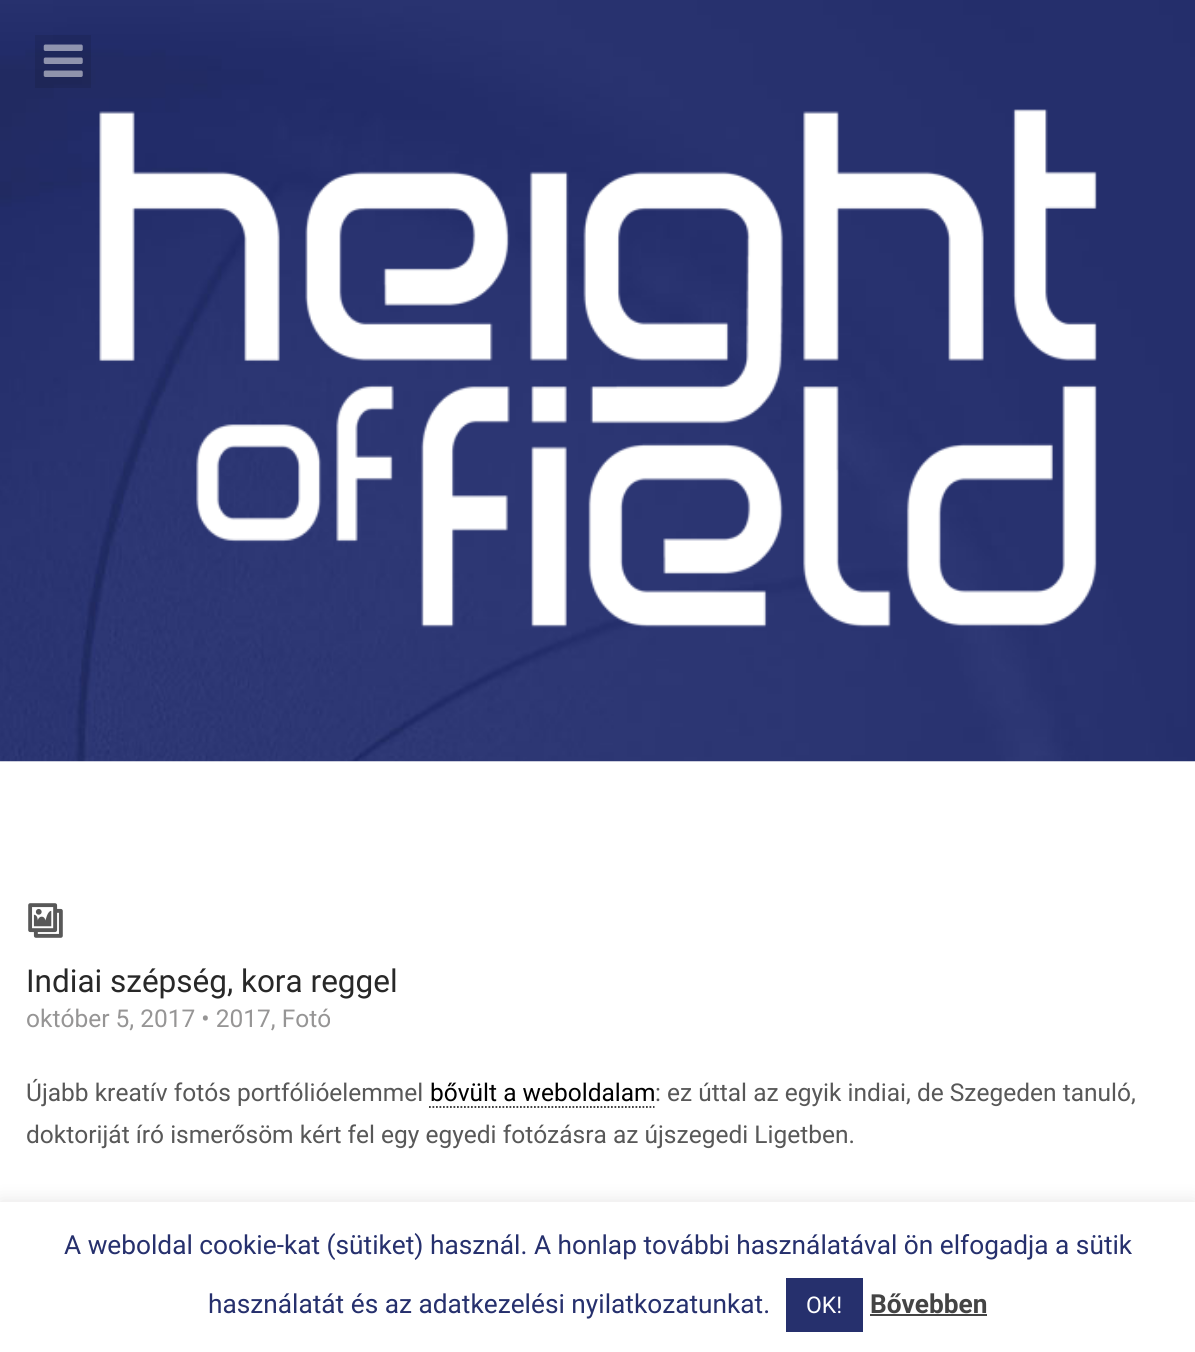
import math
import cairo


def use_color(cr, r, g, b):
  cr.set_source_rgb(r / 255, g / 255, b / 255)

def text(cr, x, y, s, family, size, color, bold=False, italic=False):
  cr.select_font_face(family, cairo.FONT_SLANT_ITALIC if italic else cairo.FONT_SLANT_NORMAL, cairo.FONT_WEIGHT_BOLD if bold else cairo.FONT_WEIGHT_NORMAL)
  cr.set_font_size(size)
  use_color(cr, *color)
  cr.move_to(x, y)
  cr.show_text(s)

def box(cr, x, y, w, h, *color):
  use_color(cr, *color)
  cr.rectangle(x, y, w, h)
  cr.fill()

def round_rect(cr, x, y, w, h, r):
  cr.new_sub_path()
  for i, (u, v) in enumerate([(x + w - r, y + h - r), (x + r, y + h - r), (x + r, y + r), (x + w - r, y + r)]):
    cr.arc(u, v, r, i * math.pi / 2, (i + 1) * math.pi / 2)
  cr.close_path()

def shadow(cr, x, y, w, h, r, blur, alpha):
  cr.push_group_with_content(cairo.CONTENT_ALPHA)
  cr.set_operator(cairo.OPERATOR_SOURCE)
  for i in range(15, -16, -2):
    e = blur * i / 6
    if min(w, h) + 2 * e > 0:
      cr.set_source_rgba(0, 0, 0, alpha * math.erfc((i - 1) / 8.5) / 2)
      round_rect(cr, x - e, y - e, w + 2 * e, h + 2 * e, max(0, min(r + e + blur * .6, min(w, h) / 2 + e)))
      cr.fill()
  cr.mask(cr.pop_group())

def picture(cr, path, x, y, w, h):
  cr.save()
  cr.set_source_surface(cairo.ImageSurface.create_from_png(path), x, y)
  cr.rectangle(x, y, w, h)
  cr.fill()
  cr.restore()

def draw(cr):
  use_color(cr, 255, 255, 255)
  cr.paint()
  picture(cr, "img_01.png", 0, 0, 1195, 762)
  cr.set_source_rgba(0, 0, 0, 0.1)
  cr.rectangle(35, 35, 56, 53)
  cr.fill()
  picture(cr, "img_02.png", 43, 44, 40, 33)
  picture(cr, "img_03.png", 99, 109, 998, 519)
  picture(cr, "img_04.png", 28, 903, 35, 35)
  cr.new_path()
  cr.move_to(429, 1107)
  cr.line_to(654.5, 1107)
  use_color(cr, 47, 47, 47)
  cr.set_line_width(1.8)
  cr.set_dash([1.75, 1.75])
  cr.stroke()
  use_color(cr, 172, 171, 171)
  shadow(cr, 0, 1201, 1195, 150, 0, 9, 0.3)
  box(cr, 0, 1202, 1195, 150, 255, 255, 255)
  box(cr, 786, 1278, 77, 54, 38, 48, 109)
  box(cr, 870, 1314, 117, 2, 68, 68, 68)
  text(cr, 26, 992, "Indiai szépség, kora reggel", "Roboto", 31.5, (40, 40, 40))
  text(cr, 26, 1027, "október 5, 2017 • 2017, Fotó", "Roboto", 24.5, (150, 149, 149))
  text(cr, 26, 1101, "Újabb kreatív fotós portfólióelemmel", "Roboto", 24.5, (88, 88, 88))
  text(cr, 430, 1101, "bővült a weboldalam", "Roboto", 24.5, (0, 0, 0))
  text(cr, 655, 1101, ": ez úttal az egyik indiai, de Szegeden tanuló,", "Roboto", 24.5, (88, 88, 88))
  text(cr, 26, 1143, "doktoriját író ismerősöm kért fel egy egyedi fotózásra az újszegedi Ligetben.", "Roboto", 24.5, (88, 88, 88))
  text(cr, 64, 1254, "A weboldal cookie-kat (sütiket) használ. A honlap további használatával ön elfogadja a sütik", "Roboto", 26.25, (38, 48, 109))
  text(cr, 208, 1313, "használatát és az adatkezelési nyilatkozatunkat.", "Roboto", 26.25, (38, 48, 109))
  text(cr, 806, 1313, "OK!", "Roboto", 23, (255, 255, 255))
  text(cr, 870, 1313, "Bővebben", "Roboto", 26.25, (68, 68, 68), bold=True)


surface = cairo.ImageSurface(cairo.FORMAT_RGB24, 1195, 1352)
cr = cairo.Context(surface)
options = cairo.FontOptions()
options.set_hint_metrics(cairo.HINT_METRICS_OFF)
options.set_hint_style(cairo.HINT_STYLE_NONE)
cr.set_font_options(options)
cr.set_miter_limit(4)
draw(cr)
surface.write_to_png("out.png")
